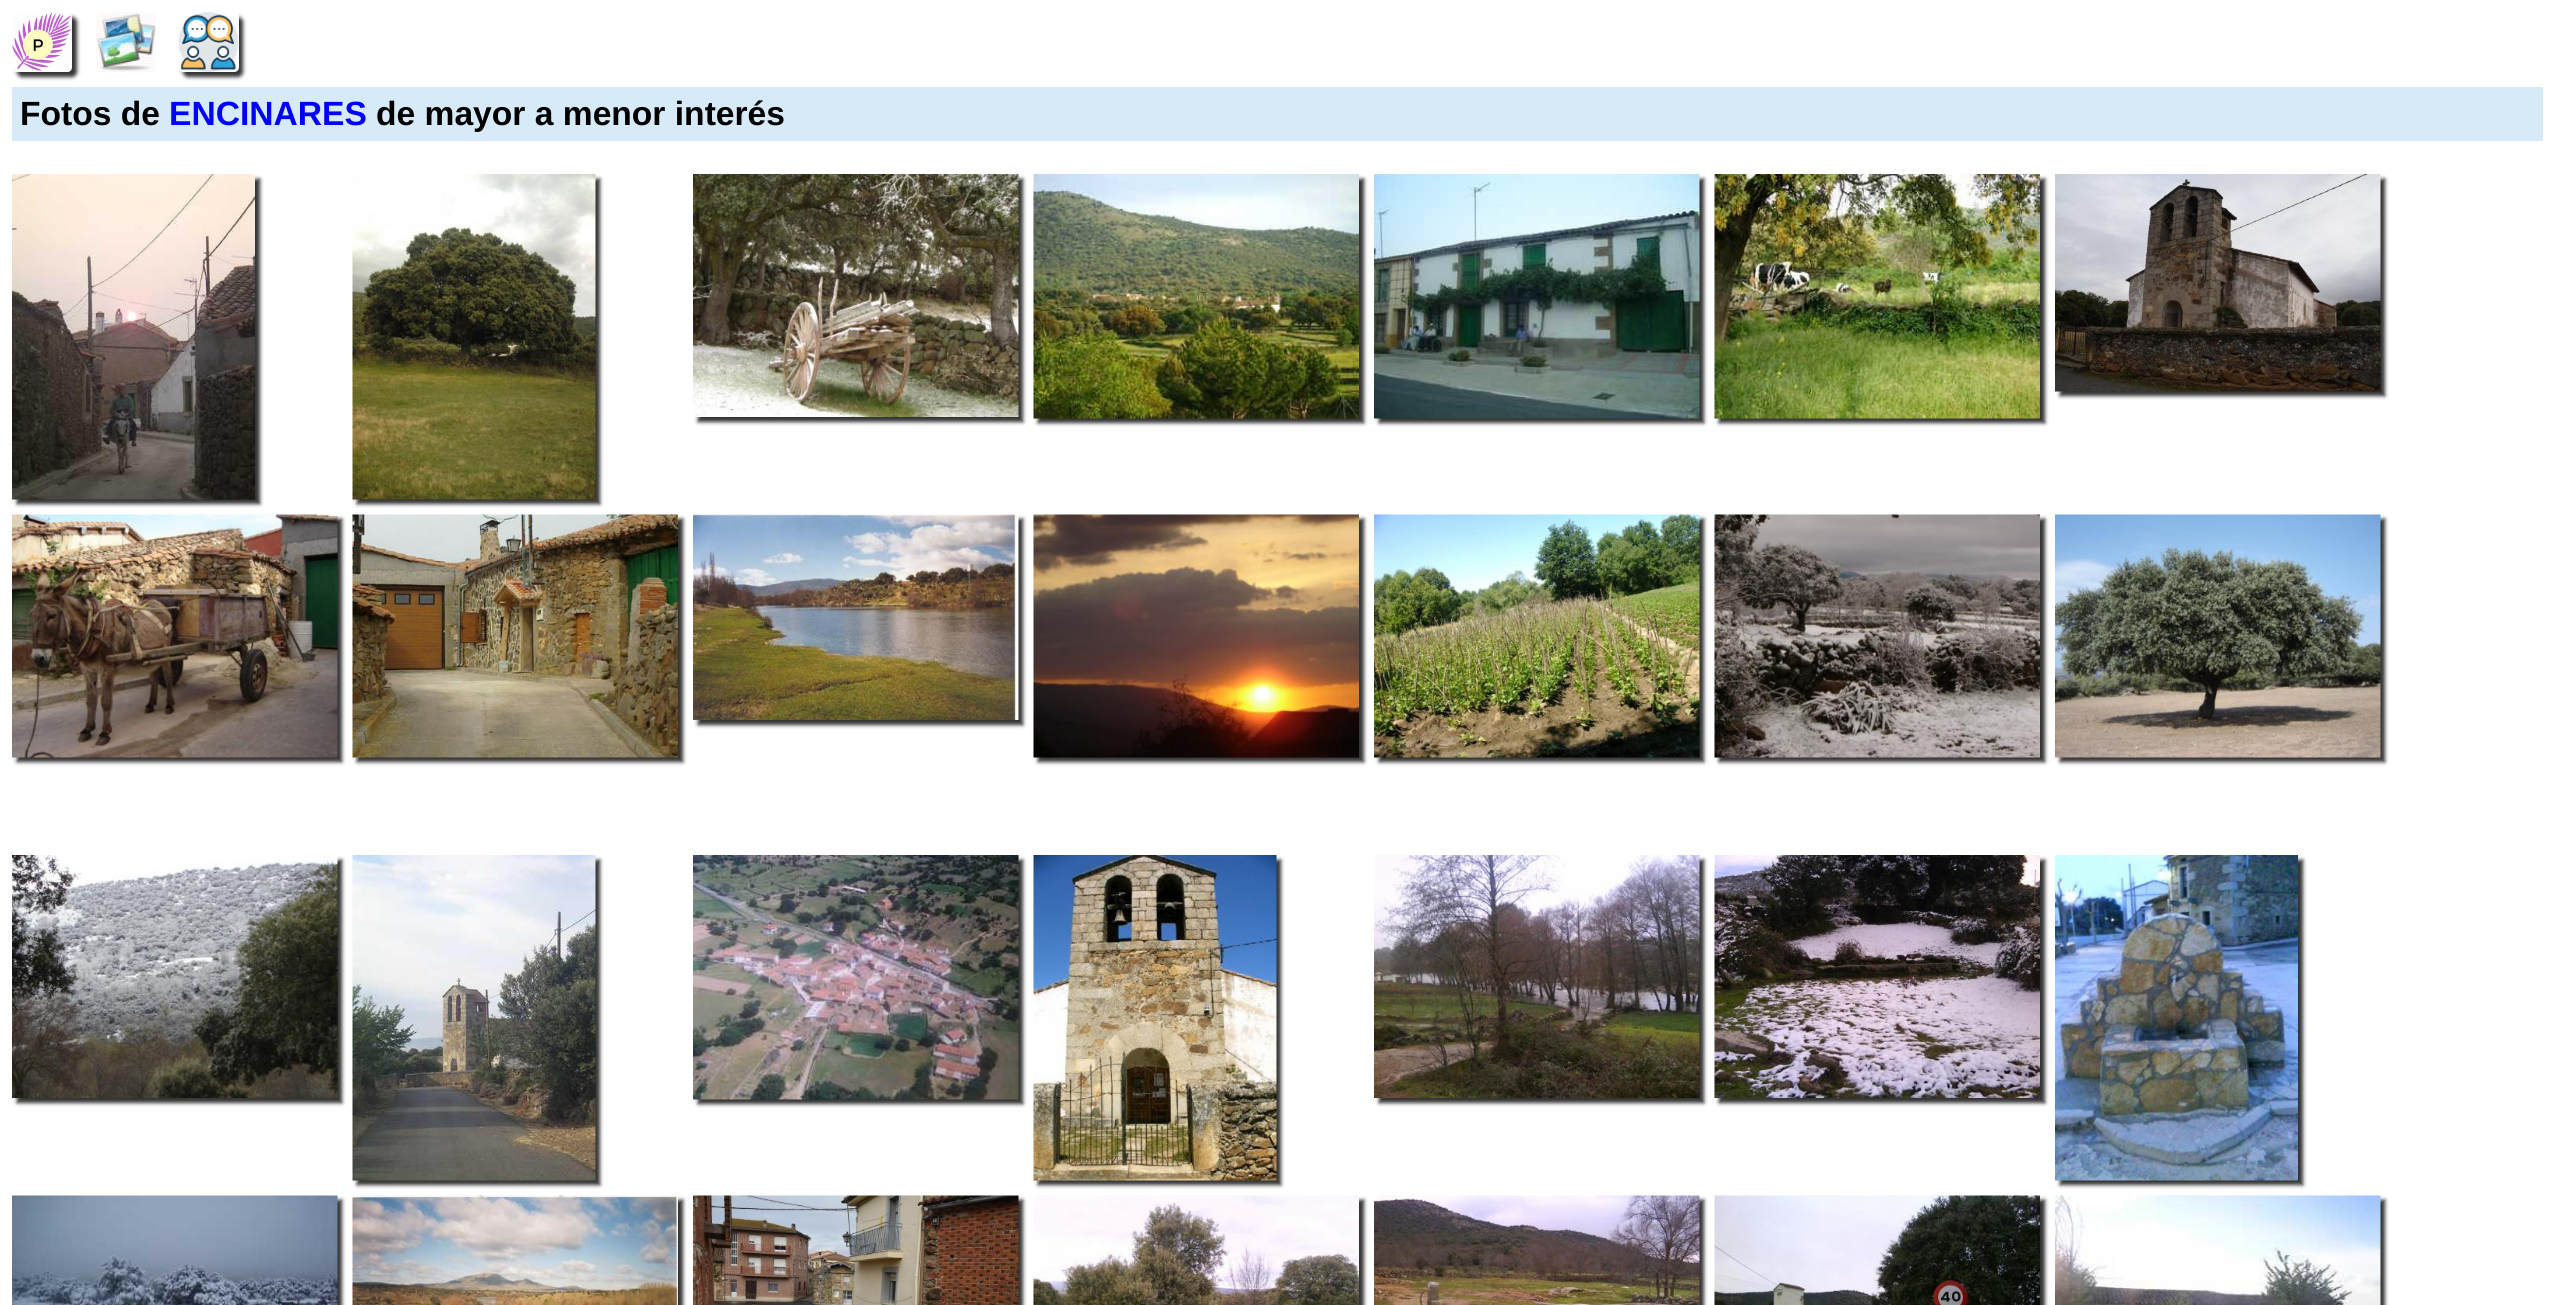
import math
import cairo


def use_color(cr, r, g, b):
  cr.set_source_rgb(r / 255, g / 255, b / 255)

def text(cr, x, y, s, family, size, color, bold=False, italic=False):
  cr.select_font_face(family, cairo.FONT_SLANT_ITALIC if italic else cairo.FONT_SLANT_NORMAL, cairo.FONT_WEIGHT_BOLD if bold else cairo.FONT_WEIGHT_NORMAL)
  cr.set_font_size(size)
  use_color(cr, *color)
  cr.move_to(x, y)
  cr.show_text(s)

def box(cr, x, y, w, h, *color):
  use_color(cr, *color)
  cr.rectangle(x, y, w, h)
  cr.fill()

def round_rect(cr, x, y, w, h, r):
  cr.new_sub_path()
  for i, (u, v) in enumerate([(x + w - r, y + h - r), (x + r, y + h - r), (x + r, y + r), (x + w - r, y + r)]):
    cr.arc(u, v, r, i * math.pi / 2, (i + 1) * math.pi / 2)
  cr.close_path()

def shadow(cr, x, y, w, h, r, blur, alpha):
  cr.push_group_with_content(cairo.CONTENT_ALPHA)
  cr.set_operator(cairo.OPERATOR_SOURCE)
  for i in range(15, -16, -2):
    e = blur * i / 6
    if min(w, h) + 2 * e > 0:
      cr.set_source_rgba(0, 0, 0, alpha * math.erfc((i - 1) / 8.5) / 2)
      round_rect(cr, x - e, y - e, w + 2 * e, h + 2 * e, max(0, min(r + e + blur * .6, min(w, h) / 2 + e)))
      cr.fill()
  cr.mask(cr.pop_group())

def picture(cr, path, x, y, w, h):
  cr.save()
  cr.set_source_surface(cairo.ImageSurface.create_from_png(path), x, y)
  cr.rectangle(x, y, w, h)
  cr.fill()
  cr.restore()

def draw(cr):
  use_color(cr, 255, 255, 255)
  cr.paint()
  use_color(cr, 51, 51, 51)
  shadow(cr, 17, 17, 60, 60, 5, 2, 1)
  cr.save()
  cr.set_fill_rule(cairo.FILL_RULE_EVEN_ODD)
  cr.new_path()
  cr.move_to(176, 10)
  cr.line_to(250, 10)
  cr.line_to(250, 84)
  cr.line_to(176, 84)
  cr.close_path()
  cr.move_to(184, 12)
  cr.line_to(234, 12)
  cr.curve_to(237, 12, 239, 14, 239, 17)
  cr.line_to(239, 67)
  cr.curve_to(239, 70, 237, 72, 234, 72)
  cr.line_to(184, 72)
  cr.curve_to(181, 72, 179, 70, 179, 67)
  cr.line_to(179, 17)
  cr.curve_to(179, 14, 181, 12, 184, 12)
  cr.close_path()
  cr.clip()
  shadow(cr, 183, 17, 60, 60, 5, 2, 1)
  cr.restore()
  picture(cr, "img_01.png", 12, 12, 60, 60)
  picture(cr, "img_02.png", 96, 12, 60, 60)
  picture(cr, "img_03.png", 178, 12, 61, 60)
  box(cr, 12, 87, 2531, 54, 214, 234, 248)
  use_color(cr, 51, 51, 51)
  shadow(cr, 17, 179, 243, 325, 0, 2, 1)
  picture(cr, "img_04.png", 12, 174, 243, 326)
  shadow(cr, 357, 179, 243, 325, 0, 2, 1)
  picture(cr, "img_05.png", 352, 174, 244, 326)
  shadow(cr, 698, 179, 325, 243, 0, 2, 1)
  picture(cr, "img_06.png", 693, 174, 326, 243)
  shadow(cr, 1038, 179, 326, 244, 0, 2, 1)
  picture(cr, "img_07.png", 1033, 174, 326, 245)
  shadow(cr, 1379, 179, 325, 244, 0, 2, 1)
  picture(cr, "img_08.png", 1374, 174, 326, 245)
  shadow(cr, 1719, 179, 326, 244, 0, 2, 1)
  picture(cr, "img_09.png", 1714, 174, 326, 245)
  shadow(cr, 2060, 179, 325, 217, 0, 2, 1)
  picture(cr, "img_10.png", 2055, 174, 326, 218)
  shadow(cr, 17, 519, 325, 243, 0, 2, 1)
  picture(cr, "img_11.png", 12, 514, 326, 244)
  shadow(cr, 357, 519, 326, 243, 0, 2, 1)
  picture(cr, "img_12.png", 352, 514, 326, 244)
  shadow(cr, 698, 519, 325, 206, 0, 2, 1)
  picture(cr, "img_13.png", 693, 514, 326, 206)
  shadow(cr, 1038, 519, 326, 243, 0, 2, 1)
  picture(cr, "img_14.png", 1033, 514, 326, 244)
  shadow(cr, 1379, 519, 325, 243, 0, 2, 1)
  picture(cr, "img_15.png", 1374, 514, 326, 244)
  shadow(cr, 1719, 519, 326, 243, 0, 2, 1)
  picture(cr, "img_16.png", 1714, 514, 326, 244)
  shadow(cr, 2060, 519, 325, 243, 0, 2, 1)
  picture(cr, "img_17.png", 2055, 514, 326, 244)
  shadow(cr, 17, 860, 325, 243, 0, 2, 1)
  picture(cr, "img_18.png", 12, 855, 326, 243)
  shadow(cr, 357, 860, 243, 325, 0, 2, 1)
  picture(cr, "img_19.png", 352, 855, 244, 326)
  shadow(cr, 698, 860, 325, 244, 0, 2, 1)
  picture(cr, "img_20.png", 693, 855, 326, 245)
  shadow(cr, 1038, 860, 243, 325, 0, 2, 1)
  picture(cr, "img_21.png", 1033, 855, 244, 326)
  shadow(cr, 1379, 860, 325, 243, 0, 2, 1)
  picture(cr, "img_22.png", 1374, 855, 326, 243)
  shadow(cr, 1719, 860, 326, 243, 0, 2, 1)
  picture(cr, "img_23.png", 1714, 855, 326, 243)
  shadow(cr, 2060, 860, 243, 325, 0, 2, 1)
  picture(cr, "img_24.png", 2055, 855, 243, 326)
  shadow(cr, 17, 1200, 325, 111, 0, 2, 1)
  picture(cr, "img_25.png", 12, 1195, 326, 110)
  shadow(cr, 357, 1200, 326, 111, 0, 2, 1)
  picture(cr, "img_26.png", 352, 1195, 326, 110)
  shadow(cr, 698, 1200, 325, 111, 0, 2, 1)
  picture(cr, "img_27.png", 693, 1195, 326, 110)
  shadow(cr, 1038, 1200, 326, 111, 0, 2, 1)
  picture(cr, "img_28.png", 1033, 1195, 326, 110)
  shadow(cr, 1379, 1200, 325, 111, 0, 2, 1)
  picture(cr, "img_29.png", 1374, 1195, 326, 110)
  shadow(cr, 1719, 1200, 326, 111, 0, 2, 1)
  picture(cr, "img_30.png", 1714, 1195, 326, 110)
  shadow(cr, 2060, 1200, 325, 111, 0, 2, 1)
  picture(cr, "img_31.png", 2055, 1195, 326, 110)
  text(cr, 20, 125, "Fotos de", "Liberation Sans", 33.6, (0, 0, 0), bold=True)
  text(cr, 169, 125, "ENCINARES", "Liberation Sans", 33.6, (0, 0, 255), bold=True)
  text(cr, 376, 125, "de mayor a menor interés", "Liberation Sans", 33.6, (0, 0, 0), bold=True)


surface = cairo.ImageSurface(cairo.FORMAT_RGB24, 2554, 1305)
cr = cairo.Context(surface)
options = cairo.FontOptions()
options.set_hint_metrics(cairo.HINT_METRICS_OFF)
options.set_hint_style(cairo.HINT_STYLE_NONE)
cr.set_font_options(options)
cr.set_miter_limit(4)
draw(cr)
surface.write_to_png("out.png")
